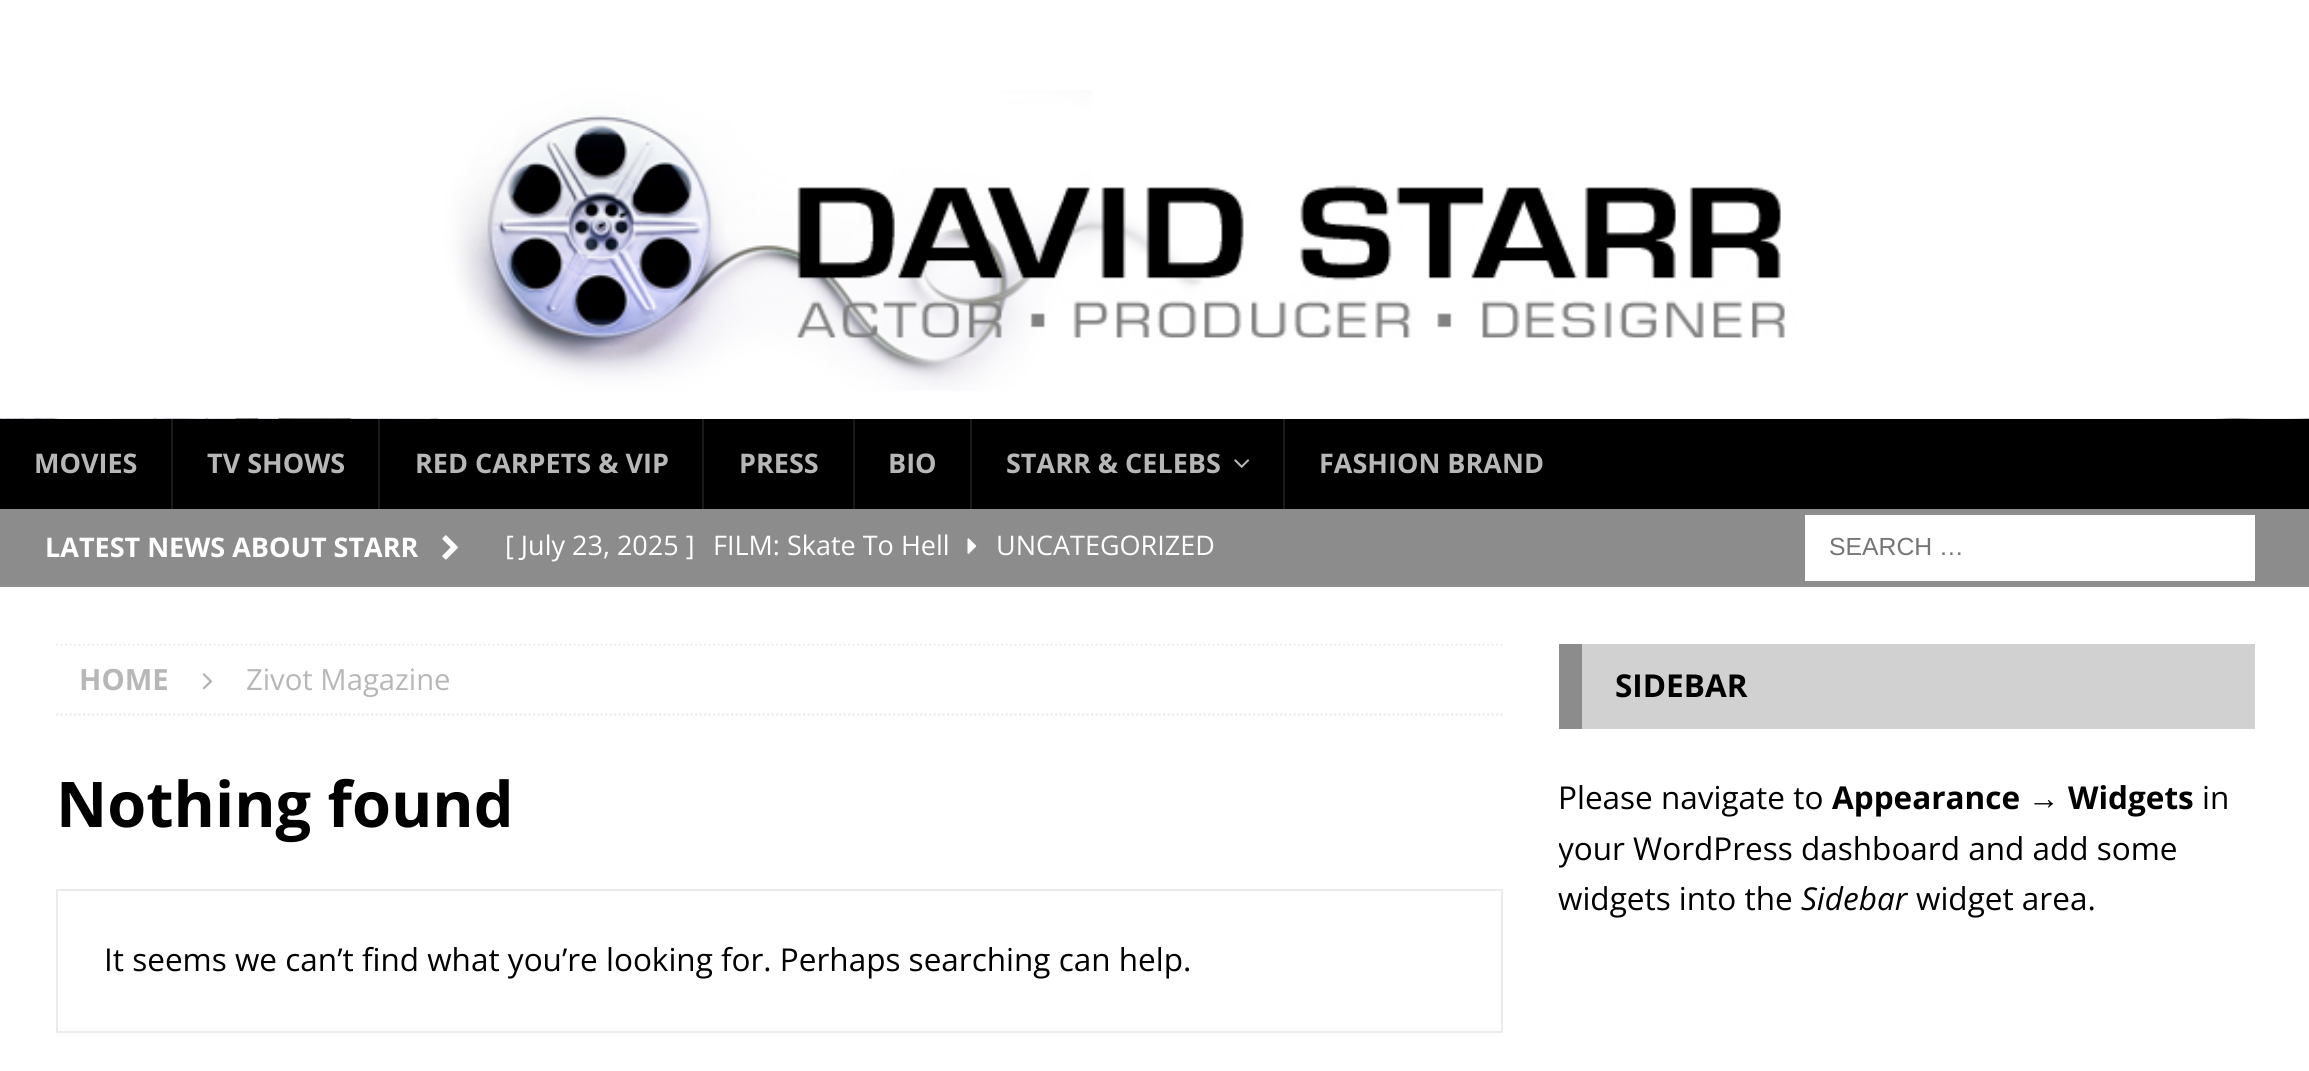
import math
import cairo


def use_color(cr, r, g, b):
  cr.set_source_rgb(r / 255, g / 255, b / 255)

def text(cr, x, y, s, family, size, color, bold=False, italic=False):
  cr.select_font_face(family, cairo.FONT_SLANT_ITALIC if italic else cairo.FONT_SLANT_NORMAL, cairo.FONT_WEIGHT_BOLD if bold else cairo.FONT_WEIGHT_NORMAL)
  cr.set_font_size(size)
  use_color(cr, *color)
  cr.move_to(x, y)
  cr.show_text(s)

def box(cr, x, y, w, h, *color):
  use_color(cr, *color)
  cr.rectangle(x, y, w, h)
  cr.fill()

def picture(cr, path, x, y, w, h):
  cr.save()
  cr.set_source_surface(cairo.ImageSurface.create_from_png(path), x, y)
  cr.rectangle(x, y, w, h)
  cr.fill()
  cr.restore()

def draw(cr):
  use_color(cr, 255, 255, 255)
  cr.paint()
  picture(cr, "img_01.png", 0, 418, 2309, 1)
  picture(cr, "img_02.png", 0, 90, 2309, 329)
  box(cr, 0, 419, 2309, 90, 0, 0, 0)
  box(cr, 171, 419, 2, 90, 26, 26, 26)
  box(cr, 378, 419, 2, 90, 26, 26, 26)
  box(cr, 702, 419, 2, 90, 26, 26, 26)
  box(cr, 853, 419, 2, 90, 26, 26, 26)
  box(cr, 970, 419, 2, 90, 26, 26, 26)
  picture(cr, "img_03.png", 1234, 459, 16, 9)
  box(cr, 1283, 419, 2, 90, 26, 26, 26)
  box(cr, 0, 509, 2309, 78, 140, 140, 140)
  picture(cr, "img_04.png", 442, 535, 16, 25)
  picture(cr, "img_05.png", 967, 538, 10, 16)
  box(cr, 1805, 515, 450, 66, 255, 255, 255)
  cr.save()
  cr.rectangle(56, 644, 1447, 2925)
  cr.clip()
  cr.new_path()
  cr.move_to(56, 644.5)
  cr.line_to(1503, 644.5)
  use_color(cr, 235, 235, 235)
  cr.set_line_width(2.2)
  cr.set_dash([2.25, 2.25])
  cr.stroke()
  cr.restore()
  cr.new_path()
  cr.move_to(56, 714.5)
  cr.line_to(1503, 714.5)
  use_color(cr, 235, 235, 235)
  cr.set_line_width(2.2)
  cr.set_dash([2.25, 2.25])
  cr.stroke()
  picture(cr, "img_06.png", 202, 673, 11, 17)
  cr.rectangle(57, 890, 1445, 142)
  cr.set_line_width(2)
  cr.set_dash([])
  cr.stroke()
  box(cr, 1582, 644, 673, 85, 209, 209, 209)
  box(cr, 1559, 644, 23, 85, 140, 140, 140)
  text(cr, 34, 473, "MOVIES", "Open Sans", 27, (183, 183, 183), bold=True)
  text(cr, 207, 473, "TV SHOWS", "Open Sans", 27, (183, 183, 183), bold=True)
  text(cr, 415, 473, "RED CARPETS & VIP", "Open Sans", 27, (183, 183, 183), bold=True)
  text(cr, 739, 473, "PRESS", "Open Sans", 27, (183, 183, 183), bold=True)
  text(cr, 888, 473, "BIO", "Open Sans", 27, (183, 183, 183), bold=True)
  text(cr, 1006, 473, "STARR & CELEBS", "Open Sans", 27, (183, 183, 183), bold=True)
  text(cr, 1319, 473, "FASHION BRAND", "Open Sans", 27, (183, 183, 183), bold=True)
  text(cr, 45, 557, "LATEST NEWS ABOUT STARR", "Open Sans", 27, (255, 255, 255), bold=True)
  text(cr, 505, 555, "[ July 23, 2025 ]", "Open Sans", 27, (255, 255, 255))
  text(cr, 713, 555, "FILM: Skate To Hell", "Open Sans", 27, (255, 255, 255))
  text(cr, 996, 555, "UNCATEGORIZED", "Open Sans", 27, (255, 255, 255))
  text(cr, 1829, 555, "SEARCH …", "Liberation Sans", 24.75, (117, 117, 117))
  text(cr, 79, 690, "HOME", "Open Sans", 29.25, (183, 183, 183), bold=True)
  text(cr, 246, 690, "Zivot Magazine", "Open Sans", 29.25, (183, 183, 183))
  text(cr, 56, 827, "Nothing found", "Open Sans", 63, (0, 0, 0), bold=True)
  text(cr, 104, 971, "It seems we can’t find what you’re looking for. Perhaps searching can help.", "Open Sans", 31.5, (0, 0, 0))
  text(cr, 1615, 697, "SIDEBAR", "Open Sans", 31.5, (0, 0, 0), bold=True)
  text(cr, 1558, 809, "Please navigate to", "Open Sans", 31.5, (0, 0, 0))
  text(cr, 1832, 809, "Appearance", "Open Sans", 31.5, (0, 0, 0), bold=True)
  text(cr, 2028, 809, "→", "Liberation Sans", 31.5, (0, 0, 0), bold=True)
  text(cr, 2068, 809, "Widgets", "Open Sans", 31.5, (0, 0, 0), bold=True)
  text(cr, 2202, 809, "in", "Open Sans", 31.5, (0, 0, 0))
  cr.save()
  cr.rectangle(1559, 644, 696, 281)
  cr.clip()
  text(cr, 1558, 860, "your WordPress dashboard and add some", "Open Sans", 31.5, (0, 0, 0))
  cr.restore()
  text(cr, 1558, 910, "widgets into the", "Open Sans", 31.5, (0, 0, 0))
  text(cr, 1801, 910, "Sidebar", "Open Sans", 31.5, (0, 0, 0), italic=True)
  text(cr, 1916, 910, "widget area.", "Open Sans", 31.5, (0, 0, 0))


surface = cairo.ImageSurface(cairo.FORMAT_RGB24, 2309, 1071)
cr = cairo.Context(surface)
options = cairo.FontOptions()
options.set_hint_metrics(cairo.HINT_METRICS_OFF)
options.set_hint_style(cairo.HINT_STYLE_NONE)
cr.set_font_options(options)
cr.set_miter_limit(4)
draw(cr)
surface.write_to_png("out.png")
